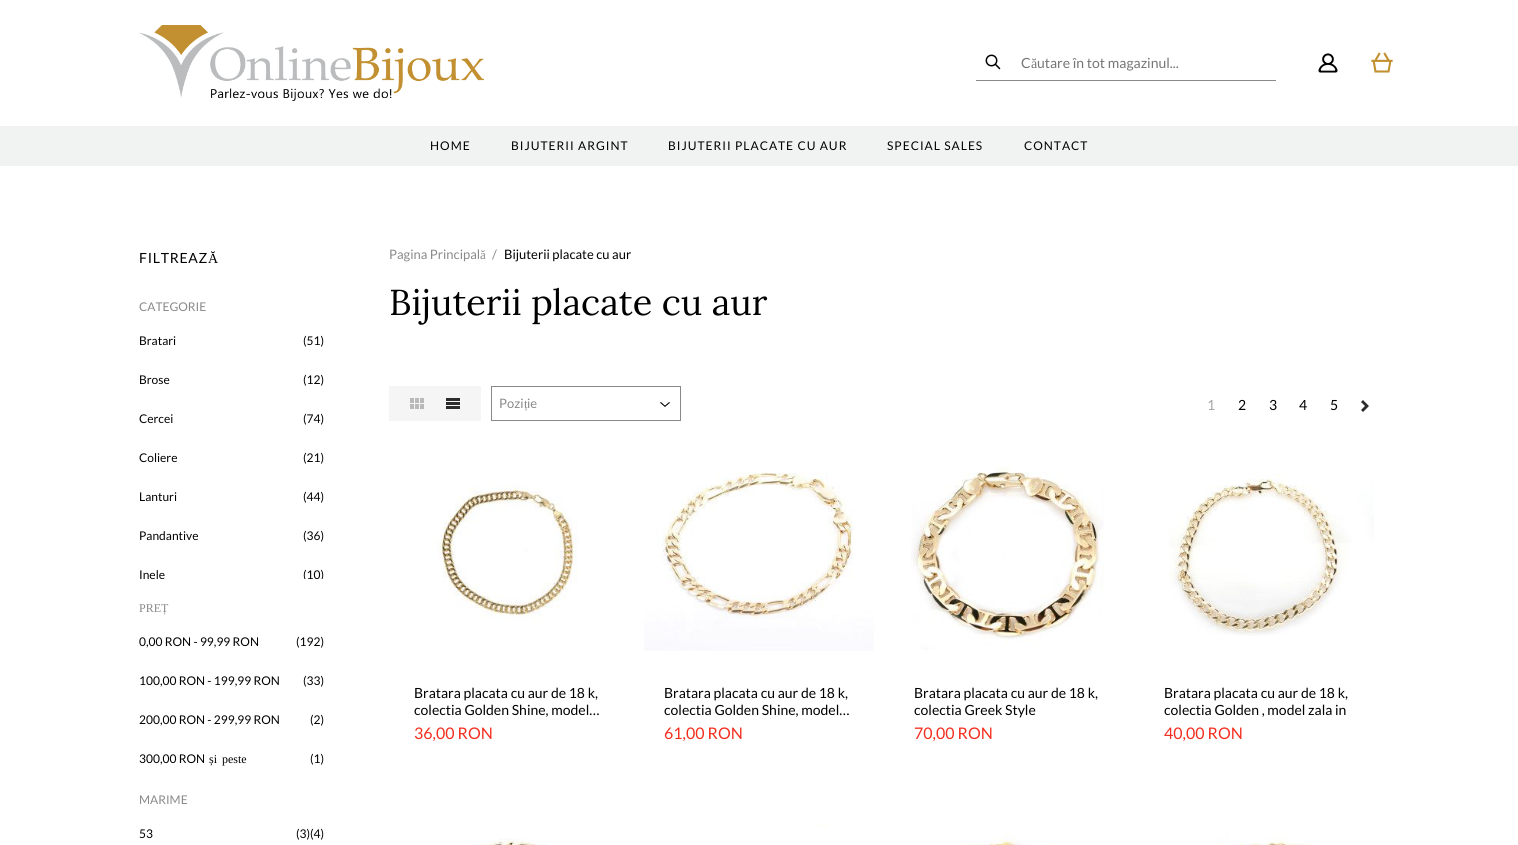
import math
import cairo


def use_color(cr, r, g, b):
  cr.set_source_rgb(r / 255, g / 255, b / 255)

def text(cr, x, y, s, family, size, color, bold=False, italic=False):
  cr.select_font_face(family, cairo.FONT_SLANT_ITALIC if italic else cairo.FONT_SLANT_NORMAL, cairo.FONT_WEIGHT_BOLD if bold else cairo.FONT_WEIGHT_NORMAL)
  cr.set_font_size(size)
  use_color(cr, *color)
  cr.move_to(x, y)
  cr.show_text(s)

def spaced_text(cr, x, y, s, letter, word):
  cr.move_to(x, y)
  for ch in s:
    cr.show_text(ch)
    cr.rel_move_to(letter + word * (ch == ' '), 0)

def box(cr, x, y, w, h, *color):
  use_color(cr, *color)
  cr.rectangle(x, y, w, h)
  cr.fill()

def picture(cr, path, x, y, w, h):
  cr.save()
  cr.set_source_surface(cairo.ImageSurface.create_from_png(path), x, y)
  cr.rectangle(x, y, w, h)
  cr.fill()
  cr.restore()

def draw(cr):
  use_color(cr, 255, 255, 255)
  cr.paint()
  picture(cr, "img_01.png", 139, 25, 345, 76)
  box(cr, 976, 80, 300, 1, 137, 137, 137)
  picture(cr, "img_02.png", 985, 54, 16, 16)
  picture(cr, "img_03.png", 1318, 53, 20, 20)
  picture(cr, "img_04.png", 1371, 52, 22, 21)
  box(cr, 0, 126, 1518, 40, 241, 242, 242)
  box(cr, 389, 386, 92, 35, 245, 245, 245)
  picture(cr, "img_05.png", 410, 398, 14, 11)
  picture(cr, "img_06.png", 446, 398, 14, 11)
  picture(cr, "img_07.png", 660, 402, 10, 5)
  cr.rectangle(491.5, 386.5, 189, 34)
  use_color(cr, 137, 137, 137)
  cr.set_line_width(1)
  cr.stroke()
  picture(cr, "img_08.png", 1361, 400, 8, 12)
  picture(cr, "img_09.png", 431, 485, 147, 135)
  picture(cr, "img_10.png", 644, 472, 230, 179)
  picture(cr, "img_11.png", 911, 467, 193, 183)
  picture(cr, "img_12.png", 1169, 473, 205, 163)
  box(cr, 816, 823, 12, 5, 254, 255, 250)
  picture(cr, "img_13.png", 470, 838, 77, 7)
  picture(cr, "img_14.png", 959, 834, 92, 11)
  picture(cr, "img_15.png", 1218, 832, 98, 13)
  text(cr, 1021, 68, "C", "Lato", 14, (117, 117, 117))
  text(cr, 1031, 68, "ă", "Liberation Serif", 14, (117, 117, 117))
  text(cr, 1037, 68, "utare în tot magazinul...", "Lato", 14, (117, 117, 117))
  cr.set_font_size(12)
  use_color(cr, 0, 0, 0)
  spaced_text(cr, 430, 150, "HOME", 1, 0)
  spaced_text(cr, 511, 150, "BIJUTERII ARGINT", 1, 0)
  spaced_text(cr, 668, 150, "BIJUTERII PLACATE CU AUR", 1, 0)
  spaced_text(cr, 887, 150, "SPECIAL SALES", 1, 0)
  spaced_text(cr, 1024, 150, "CONTACT", 1, 0)
  cr.set_font_size(14)
  spaced_text(cr, 139, 263, "FILTREAZ", 0.75, 0)
  cr.select_font_face("Liberation Serif")
  spaced_text(cr, 208, 263, "Ă", 0.75, 0)
  text(cr, 139, 311, "CATEGORIE", "Lato", 12, (137, 137, 137))
  text(cr, 139, 345, "Bratari", "Lato", 12, (0, 0, 0))
  text(cr, 303, 345, "(51)", "Lato", 12, (0, 0, 0))
  text(cr, 139, 384, "Brose", "Lato", 12, (0, 0, 0))
  text(cr, 303, 384, "(12)", "Lato", 12, (0, 0, 0))
  text(cr, 139, 423, "Cercei", "Lato", 12, (0, 0, 0))
  text(cr, 303, 423, "(74)", "Lato", 12, (0, 0, 0))
  text(cr, 139, 462, "Coliere", "Lato", 12, (0, 0, 0))
  text(cr, 303, 462, "(21)", "Lato", 12, (0, 0, 0))
  text(cr, 139, 501, "Lanturi", "Lato", 12, (0, 0, 0))
  text(cr, 303, 501, "(44)", "Lato", 12, (0, 0, 0))
  text(cr, 139, 540, "Pandantive", "Lato", 12, (0, 0, 0))
  text(cr, 303, 540, "(36)", "Lato", 12, (0, 0, 0))
  text(cr, 139, 579, "Inele", "Lato", 12, (0, 0, 0))
  cr.save()
  cr.rectangle(139, 329, 185, 250)
  cr.clip()
  text(cr, 303, 579, "(10)", "Lato", 12, (0, 0, 0))
  cr.restore()
  text(cr, 139, 612, "PREȚ", "Liberation Serif", 12, (137, 137, 137))
  text(cr, 139, 646, "0,00 RON - 99,99 RON", "Lato", 12, (0, 0, 0))
  text(cr, 296, 646, "(192)", "Lato", 12, (0, 0, 0))
  text(cr, 139, 685, "100,00 RON - 199,99 RON", "Lato", 12, (0, 0, 0))
  text(cr, 303, 685, "(33)", "Lato", 12, (0, 0, 0))
  text(cr, 139, 724, "200,00 RON - 299,99 RON", "Lato", 12, (0, 0, 0))
  text(cr, 310, 724, "(2)", "Lato", 12, (0, 0, 0))
  text(cr, 139, 763, "300,00 RON", "Lato", 12, (0, 0, 0))
  cr.select_font_face("Liberation Serif")
  spaced_text(cr, 209, 763, "și peste", 0, 2)
  text(cr, 310, 763, "(1)", "Lato", 12, (0, 0, 0))
  text(cr, 139, 804, "MARIME", "Lato", 12, (137, 137, 137))
  text(cr, 139, 838, "53", "Lato", 12, (0, 0, 0))
  text(cr, 296, 838, "(3)", "Lato", 12, (0, 0, 0))
  text(cr, 310, 838, "(4)", "Lato", 12, (0, 0, 0))
  text(cr, 389, 259, "Pagina Principal", "Lato", 13, (137, 137, 137))
  text(cr, 480, 259, "ă", "Liberation Serif", 13, (137, 137, 137))
  text(cr, 492, 259, "/", "Lato", 13, (137, 137, 137))
  text(cr, 504, 259, "Bijuterii placate cu aur", "Lato", 13, (0, 0, 0))
  text(cr, 389, 315, "Bijuterii placate cu aur", "Lora", 36, (0, 0, 0))
  text(cr, 499, 408, "Pozi", "Lato", 13, (137, 137, 137))
  text(cr, 524, 408, "ț", "Liberation Serif", 13, (137, 137, 137))
  text(cr, 527, 408, "ie", "Lato", 13, (137, 137, 137))
  text(cr, 1207, 410, "1", "Lato", 14, (166, 166, 166))
  text(cr, 1238, 410, "2", "Lato", 14, (0, 0, 0))
  text(cr, 1269, 410, "3", "Lato", 14, (0, 0, 0))
  text(cr, 1299, 410, "4", "Lato", 14, (0, 0, 0))
  text(cr, 1330, 410, "5", "Lato", 14, (0, 0, 0))
  text(cr, 414, 698, "Bratara placata cu aur de 18 k,", "Lato", 14, (0, 0, 0))
  text(cr, 414, 715, "colectia Golden Shine, model…", "Lato", 14, (0, 0, 0))
  text(cr, 414, 739, "36,00 RON", "Lato", 16, (243, 45, 30))
  text(cr, 664, 698, "Bratara placata cu aur de 18 k,", "Lato", 14, (0, 0, 0))
  text(cr, 664, 715, "colectia Golden Shine, model…", "Lato", 14, (0, 0, 0))
  text(cr, 664, 739, "61,00 RON", "Lato", 16, (243, 45, 30))
  text(cr, 914, 698, "Bratara placata cu aur de 18 k,", "Lato", 14, (0, 0, 0))
  text(cr, 914, 715, "colectia Greek Style", "Lato", 14, (0, 0, 0))
  text(cr, 914, 739, "70,00 RON", "Lato", 16, (243, 45, 30))
  text(cr, 1164, 698, "Bratara placata cu aur de 18 k,", "Lato", 14, (0, 0, 0))
  text(cr, 1164, 715, "colectia Golden , model zala in", "Lato", 14, (0, 0, 0))
  text(cr, 1164, 739, "40,00 RON", "Lato", 16, (243, 45, 30))


surface = cairo.ImageSurface(cairo.FORMAT_RGB24, 1518, 845)
cr = cairo.Context(surface)
options = cairo.FontOptions()
options.set_hint_metrics(cairo.HINT_METRICS_OFF)
options.set_hint_style(cairo.HINT_STYLE_NONE)
cr.set_font_options(options)
cr.set_miter_limit(4)
draw(cr)
surface.write_to_png("out.png")
